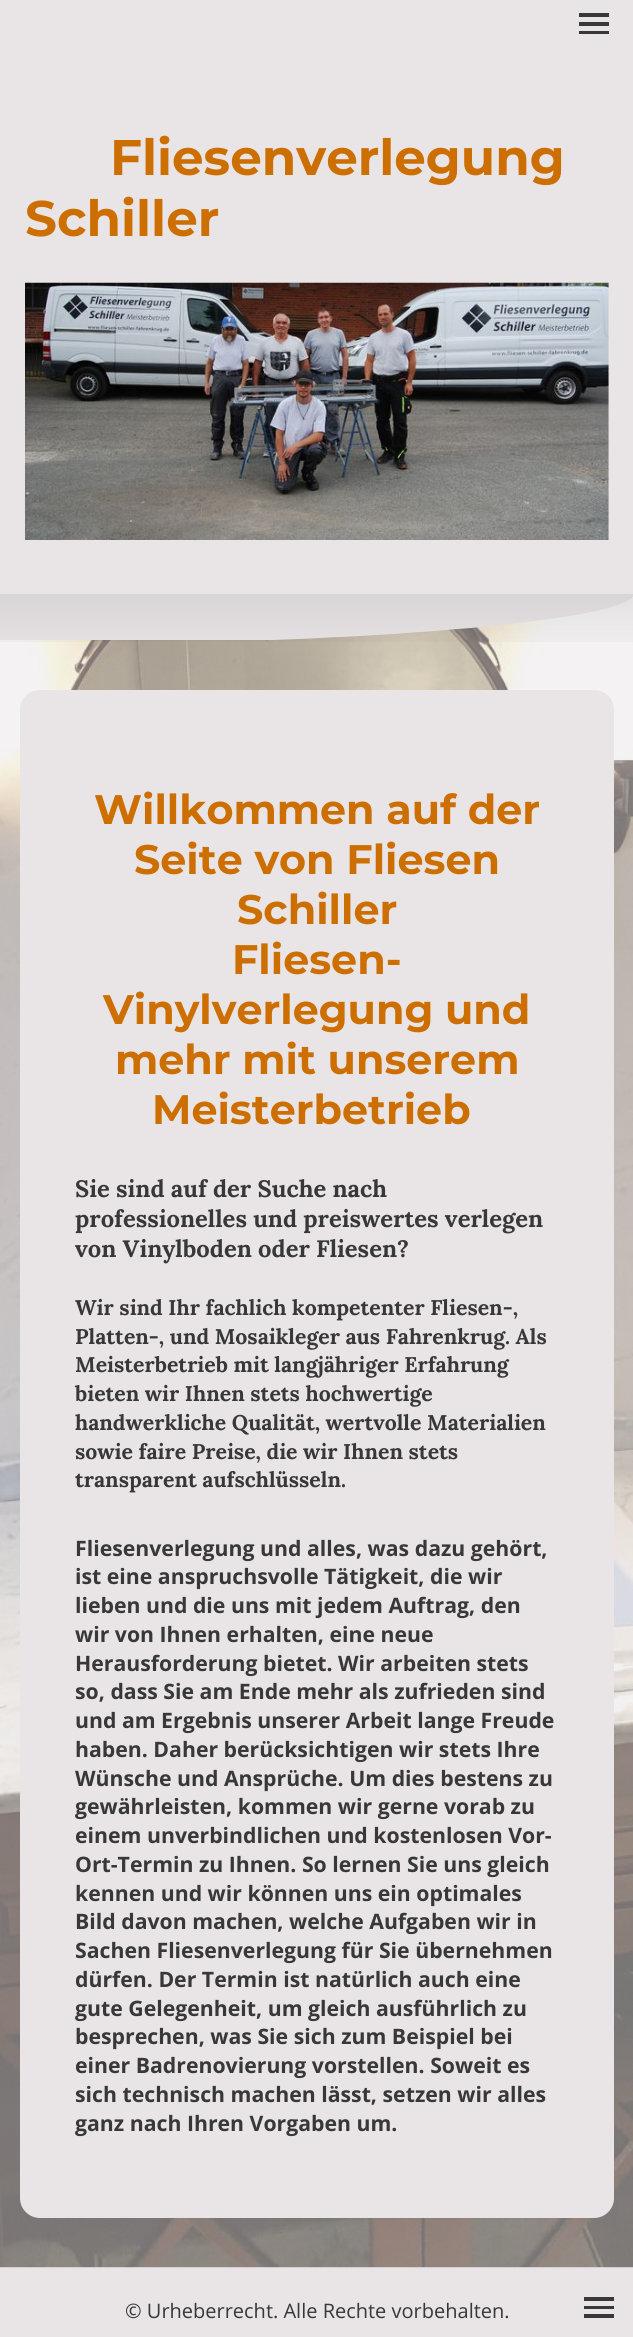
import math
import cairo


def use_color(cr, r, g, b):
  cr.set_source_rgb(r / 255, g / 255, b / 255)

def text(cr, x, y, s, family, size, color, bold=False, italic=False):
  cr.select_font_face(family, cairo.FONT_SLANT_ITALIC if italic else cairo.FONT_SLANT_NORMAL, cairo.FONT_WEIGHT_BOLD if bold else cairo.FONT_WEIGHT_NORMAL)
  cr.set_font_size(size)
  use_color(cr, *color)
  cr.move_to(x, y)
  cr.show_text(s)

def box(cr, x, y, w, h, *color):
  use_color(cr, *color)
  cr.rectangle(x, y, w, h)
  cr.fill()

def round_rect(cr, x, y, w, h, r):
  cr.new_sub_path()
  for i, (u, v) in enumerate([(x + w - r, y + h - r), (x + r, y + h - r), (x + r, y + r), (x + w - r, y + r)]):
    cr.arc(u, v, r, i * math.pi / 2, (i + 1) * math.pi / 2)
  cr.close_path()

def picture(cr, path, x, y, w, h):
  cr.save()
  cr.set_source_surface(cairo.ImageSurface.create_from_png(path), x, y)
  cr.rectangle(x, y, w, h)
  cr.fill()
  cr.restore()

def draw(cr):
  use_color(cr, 233, 229, 230)
  cr.paint()
  box(cr, 579, 13, 30, 4, 56, 56, 56)
  box(cr, 579, 22, 30, 4, 56, 56, 56)
  box(cr, 579, 31, 30, 3, 56, 56, 56)
  picture(cr, "img_01.png", 25, 282, 584, 258)
  picture(cr, "img_02.png", 0, 596, 633, 1672)
  gradient = cairo.LinearGradient(317, 594, 317, 663)
  gradient.add_color_stop_rgba(0, 0, 0, 0, 0.07)
  gradient.add_color_stop_rgba(1, 0, 0, 0, 0)
  cr.set_source(gradient)
  cr.rectangle(0, 594, 633, 48)
  cr.fill()
  use_color(cr, 233, 229, 230)
  round_rect(cr, 20, 690, 594, 1528, 20)
  cr.fill()
  box(cr, 584, 2297, 30, 4, 56, 56, 56)
  box(cr, 584, 2306, 30, 3, 56, 56, 56)
  box(cr, 584, 2314, 30, 4, 56, 56, 56)
  text(cr, 110, 175, "Fliesenverlegung", "Montserrat", 50, (205, 110, 0), bold=True)
  text(cr, 25, 236, "Schiller", "Montserrat", 50, (205, 110, 0), bold=True)
  text(cr, 94, 824, "Willkommen auf der", "Montserrat", 41.25, (205, 110, 0), bold=True)
  text(cr, 134, 874, "Seite von Fliesen", "Montserrat", 41.25, (205, 110, 0), bold=True)
  text(cr, 237, 924, "Schiller", "Montserrat", 41.25, (205, 110, 0), bold=True)
  text(cr, 232, 974, "Fliesen-", "Montserrat", 41.25, (205, 110, 0), bold=True)
  text(cr, 103, 1024, "Vinylverlegung und", "Montserrat", 41.25, (205, 110, 0), bold=True)
  text(cr, 115, 1074, "mehr mit unserem", "Montserrat", 41.25, (205, 110, 0), bold=True)
  text(cr, 152, 1124, "Meisterbetrieb", "Montserrat", 41.25, (205, 110, 0), bold=True)
  text(cr, 75, 1197, "Sie sind auf der Suche nach", "Lora", 23.75, (56, 56, 56), bold=True)
  text(cr, 75, 1227, "professionelles und preiswertes verlegen", "Lora", 23.75, (56, 56, 56), bold=True)
  text(cr, 75, 1257, "von Vinylboden oder Fliesen?", "Lora", 23.75, (56, 56, 56), bold=True)
  text(cr, 75, 1315, "Wir sind Ihr fachlich kompetenter Fliesen-,", "Lora", 21.25, (56, 56, 56), bold=True)
  text(cr, 75, 1344, "Platten-, und Mosaikleger aus Fahrenkrug. Als", "Lora", 21.25, (56, 56, 56), bold=True)
  text(cr, 75, 1372, "Meisterbetrieb mit langjähriger Erfahrung", "Lora", 21.25, (56, 56, 56), bold=True)
  text(cr, 75, 1401, "bieten wir Ihnen stets hochwertige", "Lora", 21.25, (56, 56, 56), bold=True)
  text(cr, 75, 1430, "handwerkliche Qualität, wertvolle Materialien", "Lora", 21.25, (56, 56, 56), bold=True)
  text(cr, 75, 1459, "sowie faire Preise, die wir Ihnen stets", "Lora", 21.25, (56, 56, 56), bold=True)
  text(cr, 75, 1487, "transparent aufschlüsseln.", "Lora", 21.25, (56, 56, 56), bold=True)
  text(cr, 75, 1556, "Fliesenverlegung und alles, was dazu gehört,", "Open Sans", 21.25, (56, 56, 56), bold=True)
  text(cr, 75, 1584, "ist eine anspruchsvolle Tätigkeit, die wir", "Open Sans", 21.25, (56, 56, 56), bold=True)
  text(cr, 75, 1613, "lieben und die uns mit jedem Auftrag, den", "Open Sans", 21.25, (56, 56, 56), bold=True)
  text(cr, 75, 1642, "wir von Ihnen erhalten, eine neue", "Open Sans", 21.25, (56, 56, 56), bold=True)
  text(cr, 75, 1671, "Herausforderung bietet. Wir arbeiten stets", "Open Sans", 21.25, (56, 56, 56), bold=True)
  text(cr, 75, 1699, "so, dass Sie am Ende mehr als zufrieden sind", "Open Sans", 21.25, (56, 56, 56), bold=True)
  text(cr, 75, 1728, "und am Ergebnis unserer Arbeit lange Freude", "Open Sans", 21.25, (56, 56, 56), bold=True)
  text(cr, 75, 1757, "haben. Daher berücksichtigen wir stets Ihre", "Open Sans", 21.25, (56, 56, 56), bold=True)
  text(cr, 75, 1786, "Wünsche und Ansprüche. Um dies bestens zu", "Open Sans", 21.25, (56, 56, 56), bold=True)
  text(cr, 75, 1814, "gewährleisten, kommen wir gerne vorab zu", "Open Sans", 21.25, (56, 56, 56), bold=True)
  text(cr, 75, 1843, "einem unverbindlichen und kostenlosen Vor-", "Open Sans", 21.25, (56, 56, 56), bold=True)
  text(cr, 75, 1872, "Ort-Termin zu Ihnen. So lernen Sie uns gleich", "Open Sans", 21.25, (56, 56, 56), bold=True)
  text(cr, 75, 1901, "kennen und wir können uns ein optimales", "Open Sans", 21.25, (56, 56, 56), bold=True)
  text(cr, 75, 1929, "Bild davon machen, welche Aufgaben wir in", "Open Sans", 21.25, (56, 56, 56), bold=True)
  text(cr, 75, 1958, "Sachen Fliesenverlegung für Sie übernehmen", "Open Sans", 21.25, (56, 56, 56), bold=True)
  text(cr, 75, 1987, "dürfen. Der Termin ist natürlich auch eine", "Open Sans", 21.25, (56, 56, 56), bold=True)
  text(cr, 75, 2016, "gute Gelegenheit, um gleich ausführlich zu", "Open Sans", 21.25, (56, 56, 56), bold=True)
  text(cr, 75, 2044, "besprechen, was Sie sich zum Beispiel bei", "Open Sans", 21.25, (56, 56, 56), bold=True)
  text(cr, 75, 2073, "einer Badrenovierung vorstellen. Soweit es", "Open Sans", 21.25, (56, 56, 56), bold=True)
  text(cr, 75, 2102, "sich technisch machen lässt, setzen wir alles", "Open Sans", 21.25, (56, 56, 56), bold=True)
  text(cr, 75, 2131, "ganz nach Ihren Vorgaben um.", "Open Sans", 21.25, (56, 56, 56), bold=True)
  text(cr, 125, 2318, "© Urheberrecht. Alle Rechte vorbehalten.", "Open Sans", 20, (56, 56, 56))


surface = cairo.ImageSurface(cairo.FORMAT_RGB24, 633, 2337)
cr = cairo.Context(surface)
options = cairo.FontOptions()
options.set_hint_metrics(cairo.HINT_METRICS_OFF)
options.set_hint_style(cairo.HINT_STYLE_NONE)
cr.set_font_options(options)
cr.set_miter_limit(4)
draw(cr)
surface.write_to_png("out.png")
